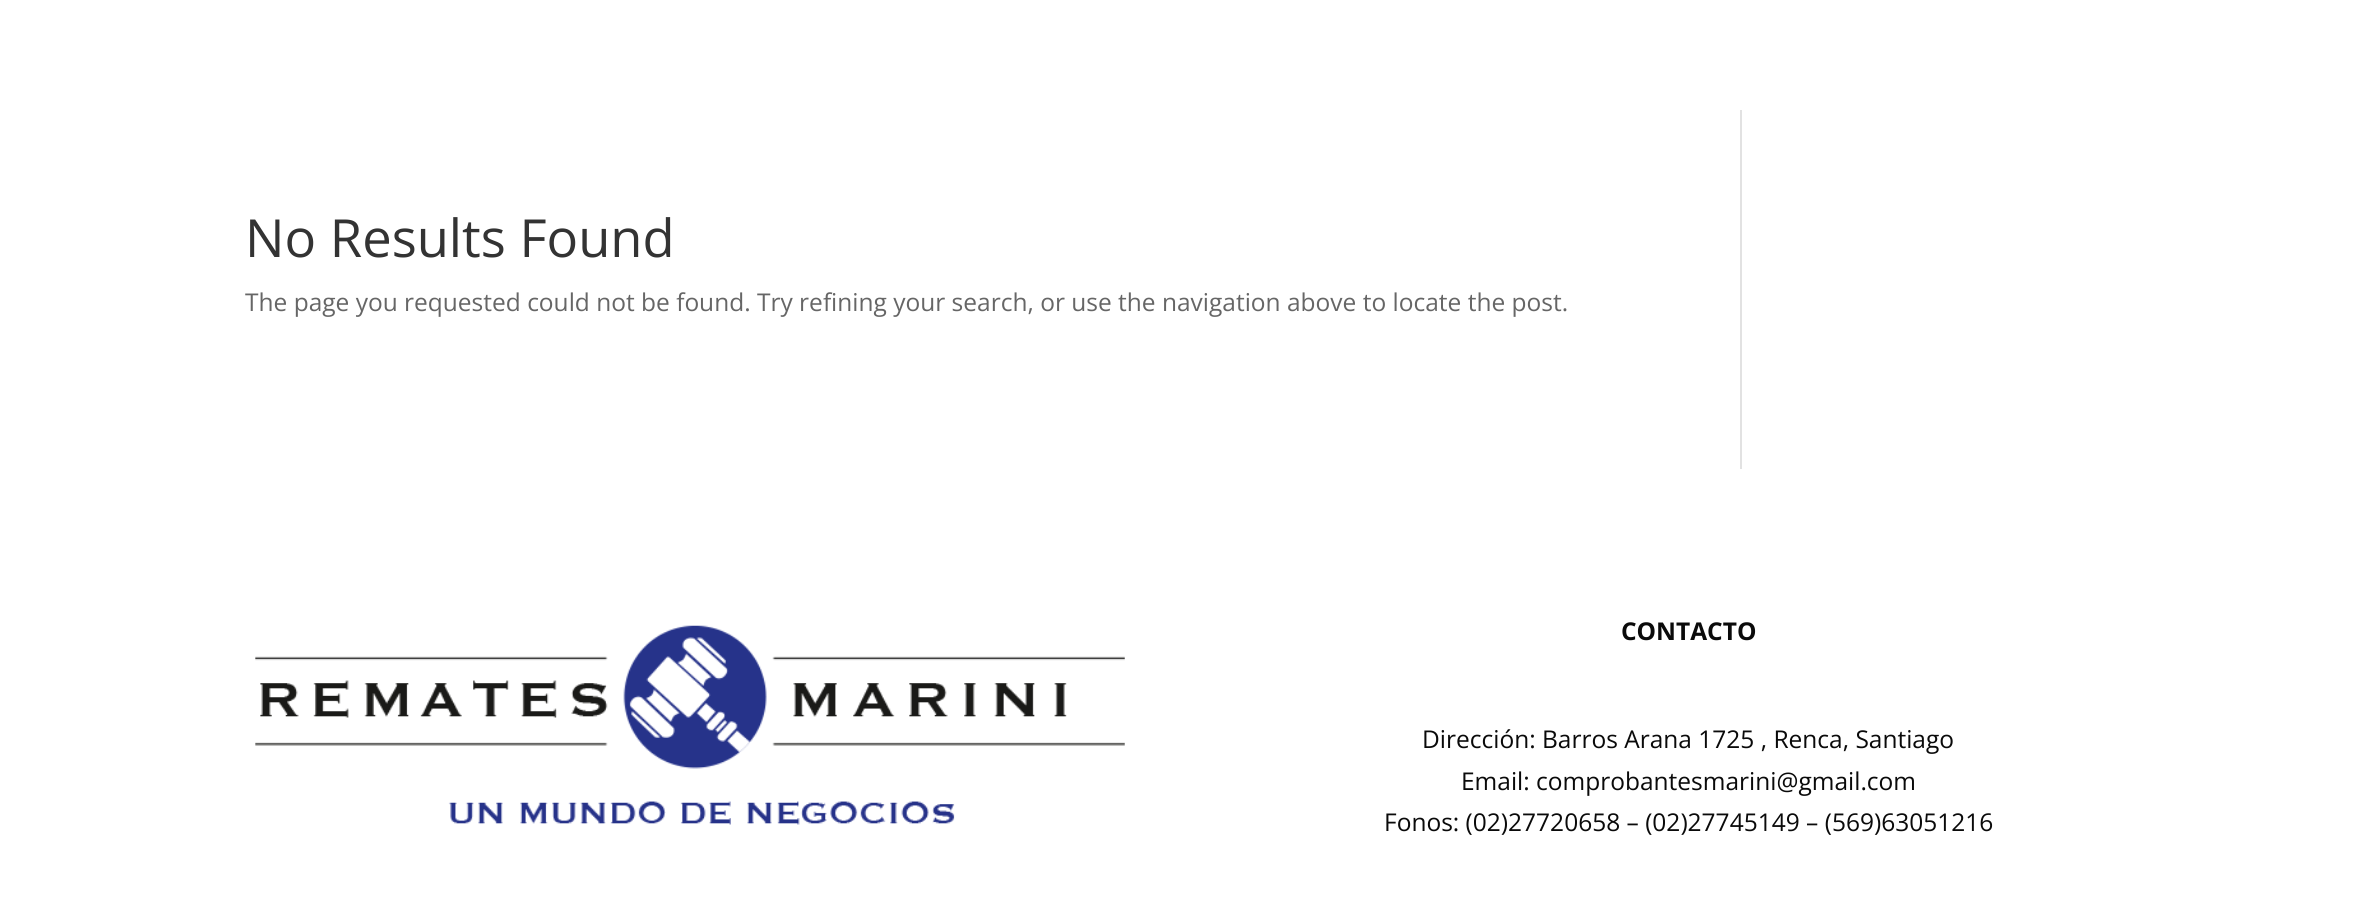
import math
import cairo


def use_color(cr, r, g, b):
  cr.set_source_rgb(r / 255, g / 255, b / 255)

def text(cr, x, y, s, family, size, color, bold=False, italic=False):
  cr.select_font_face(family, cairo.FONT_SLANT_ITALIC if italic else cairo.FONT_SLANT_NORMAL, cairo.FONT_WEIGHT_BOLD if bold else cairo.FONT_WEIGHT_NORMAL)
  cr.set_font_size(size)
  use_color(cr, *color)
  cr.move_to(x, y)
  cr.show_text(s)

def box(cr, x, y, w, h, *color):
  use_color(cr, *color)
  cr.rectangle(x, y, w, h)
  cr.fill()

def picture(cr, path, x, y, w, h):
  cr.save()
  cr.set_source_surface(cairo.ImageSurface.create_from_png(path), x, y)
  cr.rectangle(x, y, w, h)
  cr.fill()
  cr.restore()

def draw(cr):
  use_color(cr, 255, 255, 255)
  cr.paint()
  box(cr, 1740, 110, 2, 359, 226, 226, 226)
  picture(cr, "img_01.png", 255, 625, 870, 200)
  text(cr, 245, 257, "No Results Found", "Open Sans", 52.5, (51, 51, 51))
  text(cr, 245, 311, "The page you requested could not be found. Try refining your search, or use the navigation above to locate the post.", "Open Sans", 24.5, (102, 102, 102))
  text(cr, 1621, 640, "CONTACTO", "Open Sans", 24.5, (10, 10, 10), bold=True)
  text(cr, 1422, 748, "Dirección: Barros Arana 1725 , Renca, Santiago", "Open Sans", 24.5, (10, 10, 10))
  text(cr, 1461, 790, "Email: comprobantesmarini@gmail.com", "Open Sans", 24.5, (10, 10, 10))
  text(cr, 1384, 831, "Fonos: (02)27720658 – (02)27745149 – (569)63051216", "Open Sans", 24.5, (10, 10, 10))


surface = cairo.ImageSurface(cairo.FORMAT_RGB24, 2379, 911)
cr = cairo.Context(surface)
options = cairo.FontOptions()
options.set_hint_metrics(cairo.HINT_METRICS_OFF)
options.set_hint_style(cairo.HINT_STYLE_NONE)
cr.set_font_options(options)
cr.set_miter_limit(4)
draw(cr)
surface.write_to_png("out.png")
